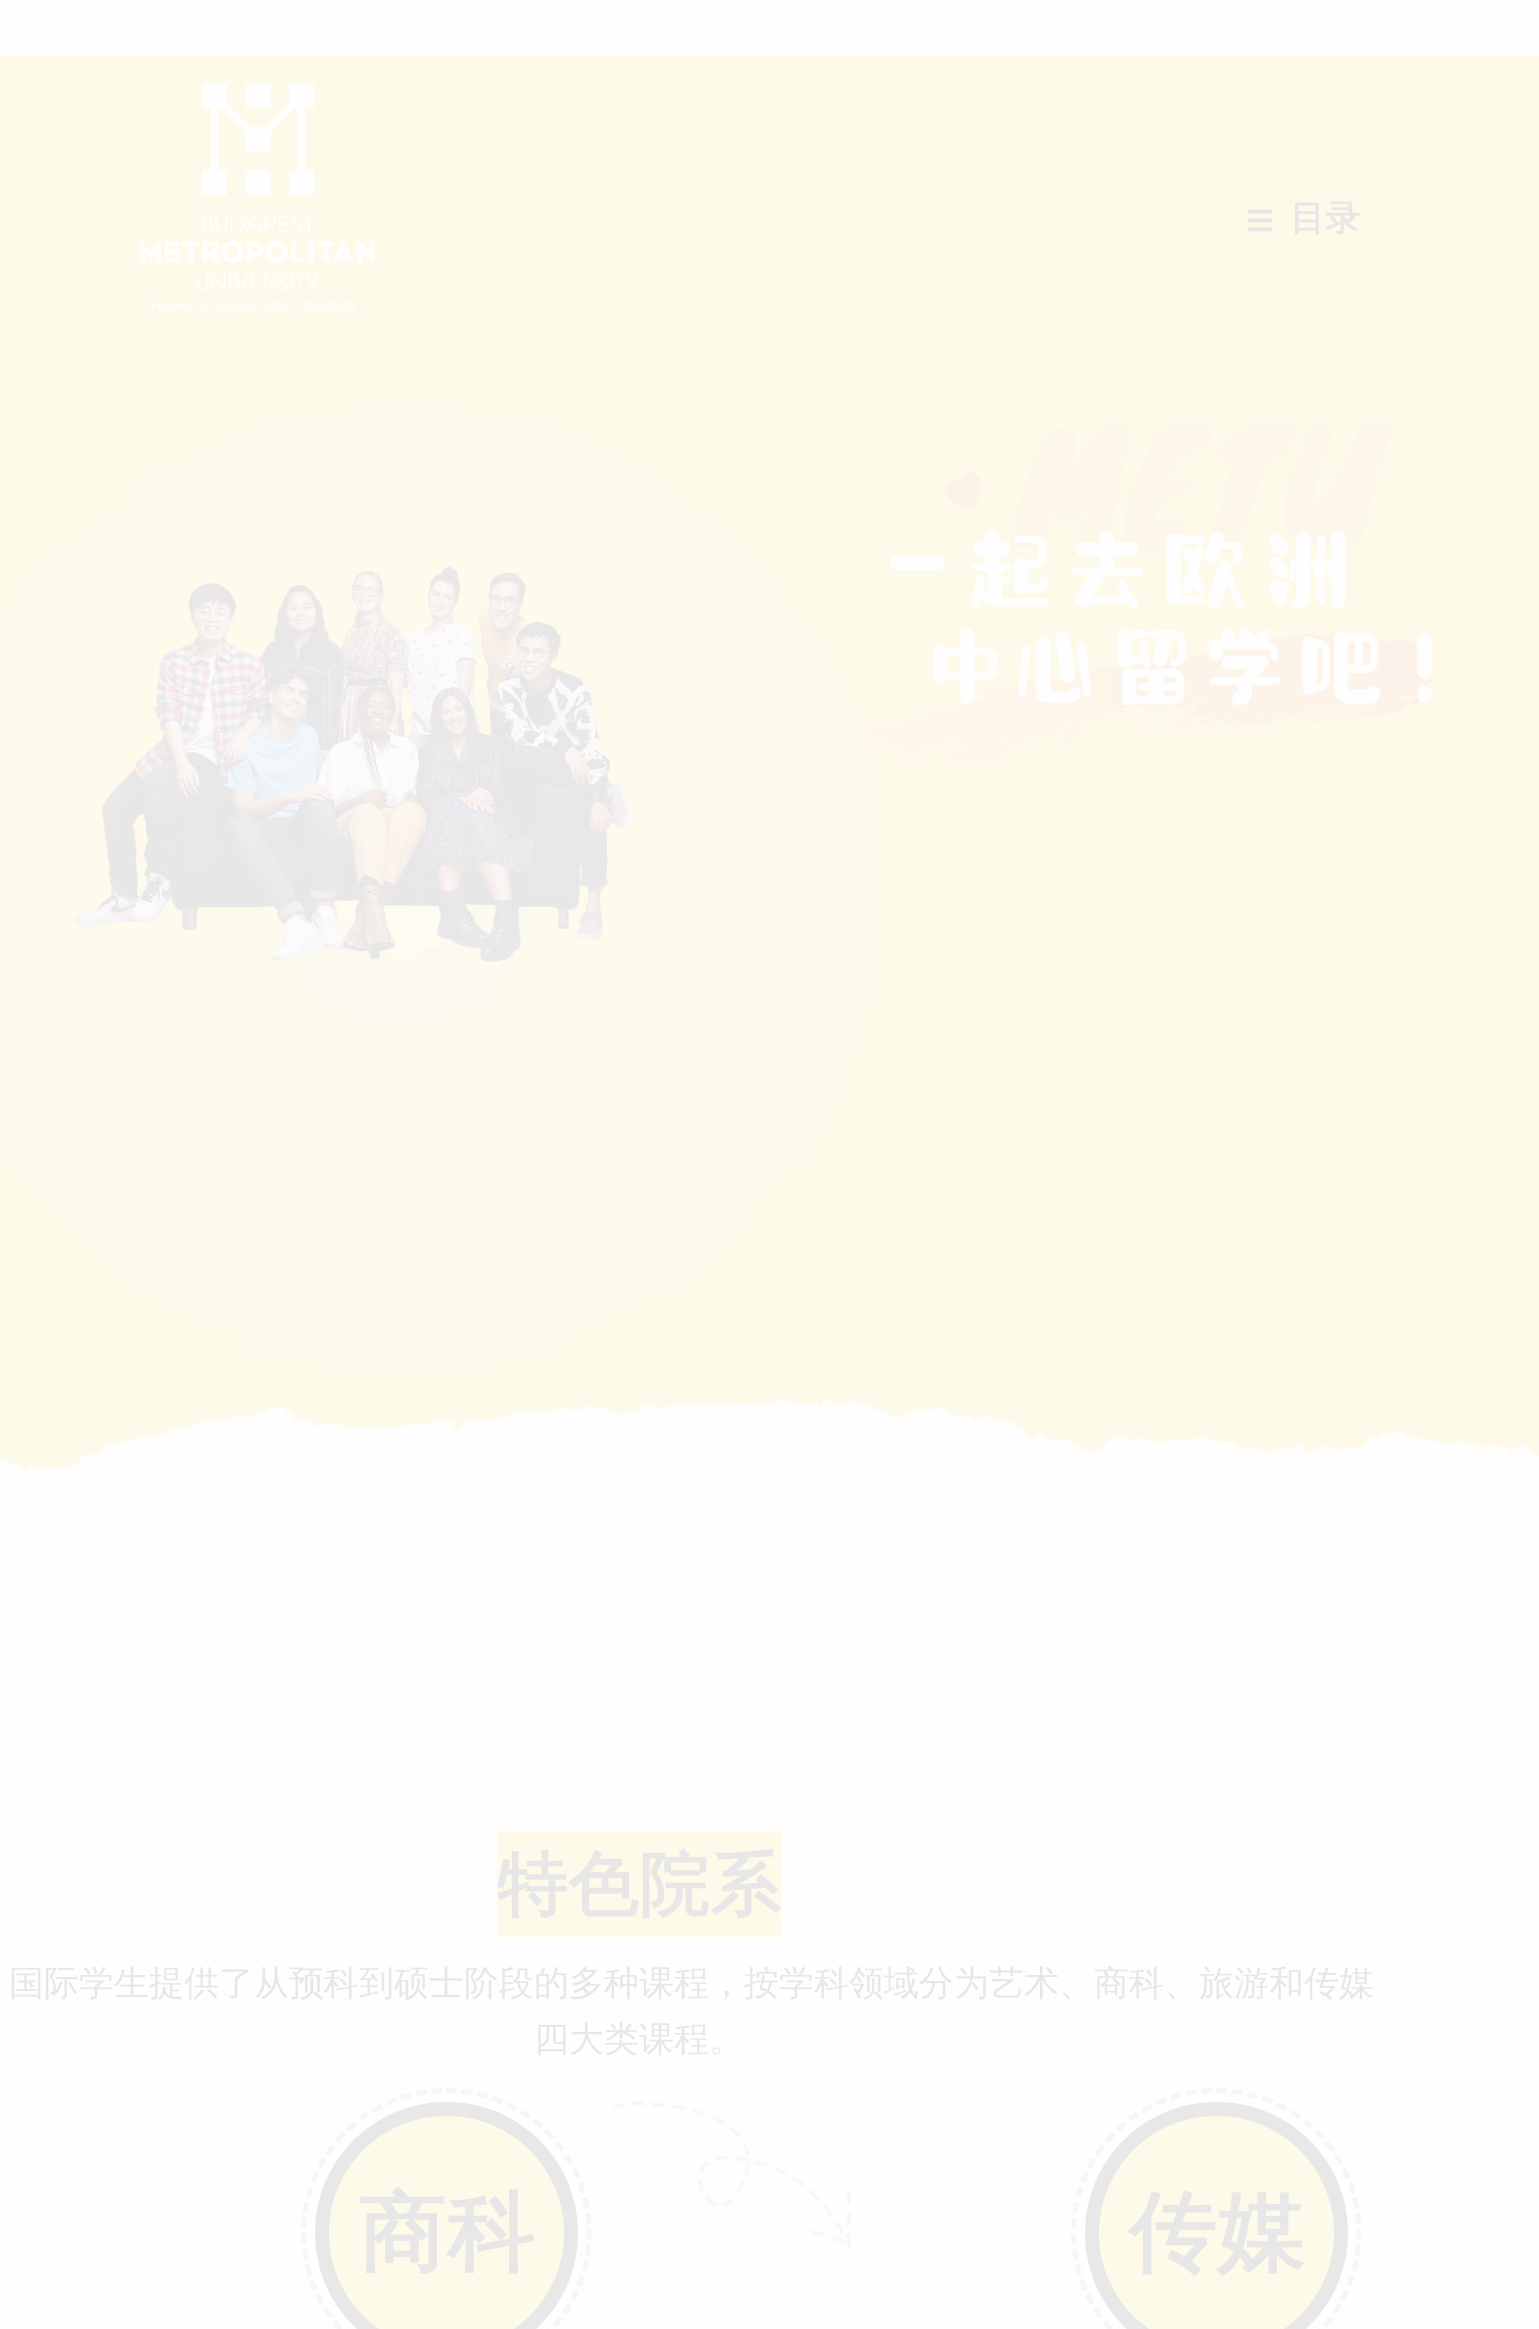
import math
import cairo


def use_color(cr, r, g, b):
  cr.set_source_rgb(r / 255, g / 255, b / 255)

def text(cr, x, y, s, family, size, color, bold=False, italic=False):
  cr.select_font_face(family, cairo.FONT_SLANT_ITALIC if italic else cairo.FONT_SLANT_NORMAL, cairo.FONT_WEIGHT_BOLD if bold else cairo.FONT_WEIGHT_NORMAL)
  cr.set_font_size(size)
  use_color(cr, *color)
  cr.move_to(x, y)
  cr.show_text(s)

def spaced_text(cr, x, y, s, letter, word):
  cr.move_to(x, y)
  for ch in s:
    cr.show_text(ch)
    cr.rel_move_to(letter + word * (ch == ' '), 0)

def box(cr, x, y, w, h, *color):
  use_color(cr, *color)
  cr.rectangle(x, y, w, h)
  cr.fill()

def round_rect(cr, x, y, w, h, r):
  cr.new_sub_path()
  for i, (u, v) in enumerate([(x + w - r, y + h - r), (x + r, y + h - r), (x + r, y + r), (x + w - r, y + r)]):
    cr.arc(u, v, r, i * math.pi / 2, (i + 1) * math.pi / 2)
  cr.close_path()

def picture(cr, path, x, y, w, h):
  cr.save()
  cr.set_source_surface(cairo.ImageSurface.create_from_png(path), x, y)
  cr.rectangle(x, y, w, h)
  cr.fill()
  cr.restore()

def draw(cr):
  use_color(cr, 254, 254, 254)
  cr.paint()
  box(cr, 0, 56, 1539, 324, 254, 250, 234)
  picture(cr, "img_01.png", 139, 83, 236, 230)
  picture(cr, "img_02.png", 1247, 209, 26, 23)
  picture(cr, "img_03.png", 0, 380, 1539, 1155)
  picture(cr, "img_04.png", 75, 550, 570, 412)
  picture(cr, "img_05.png", 799, 420, 663, 362)
  picture(cr, "img_06.png", 0, 1399, 1539, 136)
  box(cr, 497, 1832, 284, 105, 254, 250, 234)
  round_rect(cr, 322, 2109, 249, 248, 124)
  cr.fill_preserve()
  use_color(cr, 232, 232, 232)
  cr.set_line_width(14)
  cr.stroke()
  picture(cr, "img_07.png", 612, 2101, 239, 146)
  use_color(cr, 254, 250, 234)
  round_rect(cr, 1092, 2109, 249, 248, 124)
  cr.fill_preserve()
  use_color(cr, 232, 232, 232)
  cr.stroke()
  text(cr, 1290, 230, "目录", "WenQuanYi Zen Hei", 35, (231, 231, 231), bold=True)
  cr.set_font_size(70)
  spaced_text(cr, 497, 1909, "特色院系", 1, 0)
  text(cr, 9, 1995, "国际学生提供了从预科到硕士阶段的多种课程，按学科领域分为艺术、商科、旅游和传媒", "WenQuanYi Zen Hei Medium", 35, (231, 231, 231))
  text(cr, 534, 2051, "四大类课程。", "WenQuanYi Zen Hei Medium", 35, (231, 231, 231))
  cr.select_font_face("WenQuanYi Zen Hei", cairo.FONT_SLANT_NORMAL, cairo.FONT_WEIGHT_BOLD)
  cr.set_font_size(87.5)
  spaced_text(cr, 358, 2263, "商科", 1, 0)
  cr.new_path()
  cr.move_to(446, 2090.5)
  cr.curve_to(525, 2090.5, 589, 2154, 589, 2233)
  cr.curve_to(589, 2312, 525, 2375.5, 446, 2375.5)
  cr.curve_to(367.5, 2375.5, 303.5, 2312, 303.5, 2233)
  cr.curve_to(303.5, 2154, 367.5, 2090.5, 446, 2090.5)
  cr.close_path()
  use_color(cr, 246, 246, 246)
  cr.set_line_width(5.2)
  cr.set_dash([10.5, 5.25])
  cr.stroke()
  use_color(cr, 231, 231, 231)
  spaced_text(cr, 1128, 2263, "传媒", 1, 0)
  cr.new_path()
  cr.move_to(1216, 2090.5)
  cr.curve_to(1295, 2090.5, 1359, 2154, 1359, 2233)
  cr.curve_to(1359, 2312, 1295, 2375.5, 1216, 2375.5)
  cr.curve_to(1137.5, 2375.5, 1073.5, 2312, 1073.5, 2233)
  cr.curve_to(1073.5, 2154, 1137.5, 2090.5, 1216, 2090.5)
  cr.close_path()
  use_color(cr, 246, 246, 246)
  cr.stroke()


surface = cairo.ImageSurface(cairo.FORMAT_RGB24, 1539, 2329)
cr = cairo.Context(surface)
options = cairo.FontOptions()
options.set_hint_metrics(cairo.HINT_METRICS_OFF)
options.set_hint_style(cairo.HINT_STYLE_NONE)
cr.set_font_options(options)
cr.set_miter_limit(4)
draw(cr)
surface.write_to_png("out.png")
